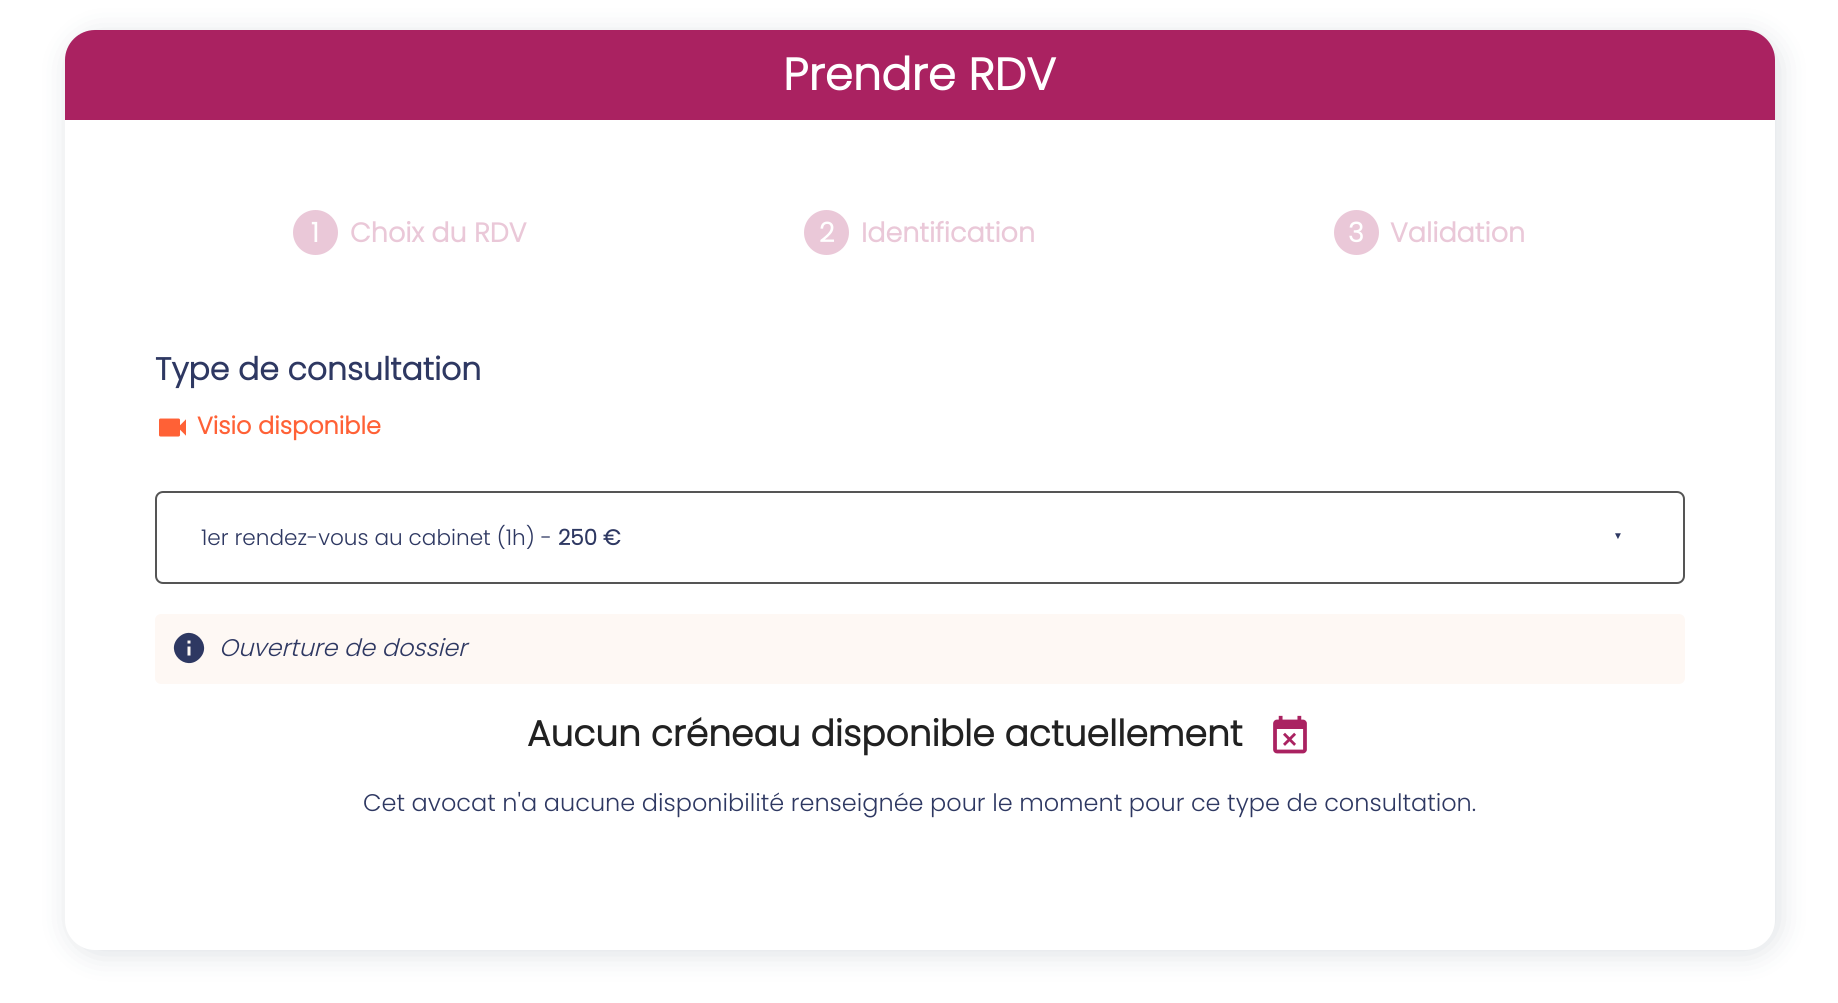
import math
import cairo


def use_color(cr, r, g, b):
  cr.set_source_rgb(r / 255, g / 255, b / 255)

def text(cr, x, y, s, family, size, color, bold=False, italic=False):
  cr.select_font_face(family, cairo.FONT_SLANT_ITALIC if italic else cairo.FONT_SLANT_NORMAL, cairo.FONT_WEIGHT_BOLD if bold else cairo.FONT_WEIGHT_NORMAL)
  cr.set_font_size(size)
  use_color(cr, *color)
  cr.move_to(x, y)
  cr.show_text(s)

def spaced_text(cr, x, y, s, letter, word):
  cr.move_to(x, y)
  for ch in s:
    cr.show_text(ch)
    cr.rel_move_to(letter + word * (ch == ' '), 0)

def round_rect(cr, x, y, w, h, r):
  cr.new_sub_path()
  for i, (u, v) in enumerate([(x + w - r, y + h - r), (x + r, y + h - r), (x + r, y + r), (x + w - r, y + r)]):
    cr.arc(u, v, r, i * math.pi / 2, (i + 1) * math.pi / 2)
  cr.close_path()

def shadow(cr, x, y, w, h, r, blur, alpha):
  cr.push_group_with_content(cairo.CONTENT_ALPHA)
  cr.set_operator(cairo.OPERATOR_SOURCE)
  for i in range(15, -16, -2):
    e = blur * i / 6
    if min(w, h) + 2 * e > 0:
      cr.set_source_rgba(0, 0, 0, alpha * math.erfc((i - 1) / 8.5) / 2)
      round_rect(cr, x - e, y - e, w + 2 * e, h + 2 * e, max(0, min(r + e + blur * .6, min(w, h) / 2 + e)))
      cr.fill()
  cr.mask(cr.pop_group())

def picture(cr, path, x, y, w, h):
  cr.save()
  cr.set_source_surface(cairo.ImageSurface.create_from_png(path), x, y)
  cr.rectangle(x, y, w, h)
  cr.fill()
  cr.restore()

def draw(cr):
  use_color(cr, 255, 255, 255)
  cr.paint()
  use_color(cr, 30, 55, 80)
  shadow(cr, 69, 35, 1710, 919, 30, 15, 0.15)
  use_color(cr, 170, 34, 97)
  cr.new_path()
  cr.move_to(95, 30)
  cr.line_to(1745, 30)
  cr.curve_to(1761.5, 30, 1775, 43.5, 1775, 60)
  cr.line_to(1775, 120)
  cr.line_to(65, 120)
  cr.line_to(65, 60)
  cr.curve_to(65, 43.5, 78.5, 30, 95, 30)
  cr.close_path()
  cr.fill()
  use_color(cr, 255, 255, 255)
  cr.new_path()
  cr.move_to(65, 120)
  cr.line_to(1775, 120)
  cr.line_to(1775, 920)
  cr.curve_to(1775, 936.5, 1761.5, 950, 1745, 950)
  cr.line_to(95, 950)
  cr.curve_to(78.5, 950, 65, 936.5, 65, 920)
  cr.close_path()
  cr.fill()
  use_color(cr, 234, 200, 216)
  cr.arc(315.5, 232.5, 22.5, 0, 2 * math.pi)
  cr.fill()
  cr.arc(826.5, 232.5, 22.5, 0, 2 * math.pi)
  cr.fill()
  cr.arc(1356.5, 232.5, 22.5, 0, 2 * math.pi)
  cr.fill()
  picture(cr, "img_01.png", 159, 418, 27, 19)
  round_rect(cr, 156, 492, 1528, 91, 7)
  use_color(cr, 85, 85, 85)
  cr.stroke()
  use_color(cr, 254, 248, 244)
  round_rect(cr, 155, 614, 1530, 70, 6)
  cr.fill()
  use_color(cr, 46, 56, 98)
  cr.new_path()
  cr.move_to(190.5, 643.5)
  cr.line_to(190.5, 640.5)
  cr.line_to(187.5, 640.5)
  cr.line_to(187.5, 643.5)
  cr.close_path()
  cr.move_to(190.5, 655.5)
  cr.line_to(190.5, 646.5)
  cr.line_to(187.5, 646.5)
  cr.line_to(187.5, 655.5)
  cr.close_path()
  cr.move_to(178.5, 637.5)
  cr.curve_to(192.5, 623.5, 213.5, 644.5, 199.5, 658.5)
  cr.curve_to(185.5, 672.5, 164.5, 651.5, 178.5, 637.5)
  cr.close_path()
  cr.fill()
  picture(cr, "img_02.png", 1273, 715, 34, 39)
  text(cr, 783, 90, "Prendre RDV", "Poppins", 45, (255, 255, 255), bold=True)
  text(cr, 311, 242, "1", "Poppins", 27, (255, 255, 255), bold=True)
  text(cr, 350, 242, "Choix du RDV", "Poppins", 27, (234, 200, 216), bold=True)
  text(cr, 819, 242, "2", "Poppins", 27, (255, 255, 255), bold=True)
  text(cr, 861, 242, "Identification", "Poppins", 27, (234, 200, 216), bold=True)
  text(cr, 1348, 242, "3", "Poppins", 27, (255, 255, 255), bold=True)
  text(cr, 1390, 242, "Validation", "Poppins", 27, (234, 200, 216), bold=True)
  text(cr, 155, 380, "Type de consultation", "Poppins", 31.5, (46, 56, 98), bold=True)
  text(cr, 197, 434, "Visio disponible", "Poppins", 24, (255, 97, 54), bold=True)
  text(cr, 201, 545, "1er rendez-vous au cabinet (1h) -", "Poppins Light", 21.6, (46, 56, 98))
  text(cr, 558, 545, "250 €", "Poppins", 21.6, (46, 56, 98), bold=True)
  cr.select_font_face("Liberation Sans")
  cr.set_font_size(10)
  spaced_text(cr, 1613, 539, "▼", 10, 0)
  text(cr, 219, 656, "Ouverture de dossier", "Poppins Light", 24, (46, 56, 98), italic=True)
  text(cr, 527, 746, "Aucun créneau disponible actuellement", "Poppins", 36, (33, 33, 33), bold=True)
  text(cr, 363, 811, "Cet avocat n'a aucune disponibilité renseignée pour le moment pour ce type de consultation.", "Poppins Light", 24, (46, 56, 98))


surface = cairo.ImageSurface(cairo.FORMAT_RGB24, 1838, 1003)
cr = cairo.Context(surface)
options = cairo.FontOptions()
options.set_hint_metrics(cairo.HINT_METRICS_OFF)
options.set_hint_style(cairo.HINT_STYLE_NONE)
cr.set_font_options(options)
cr.set_miter_limit(4)
draw(cr)
surface.write_to_png("out.png")
